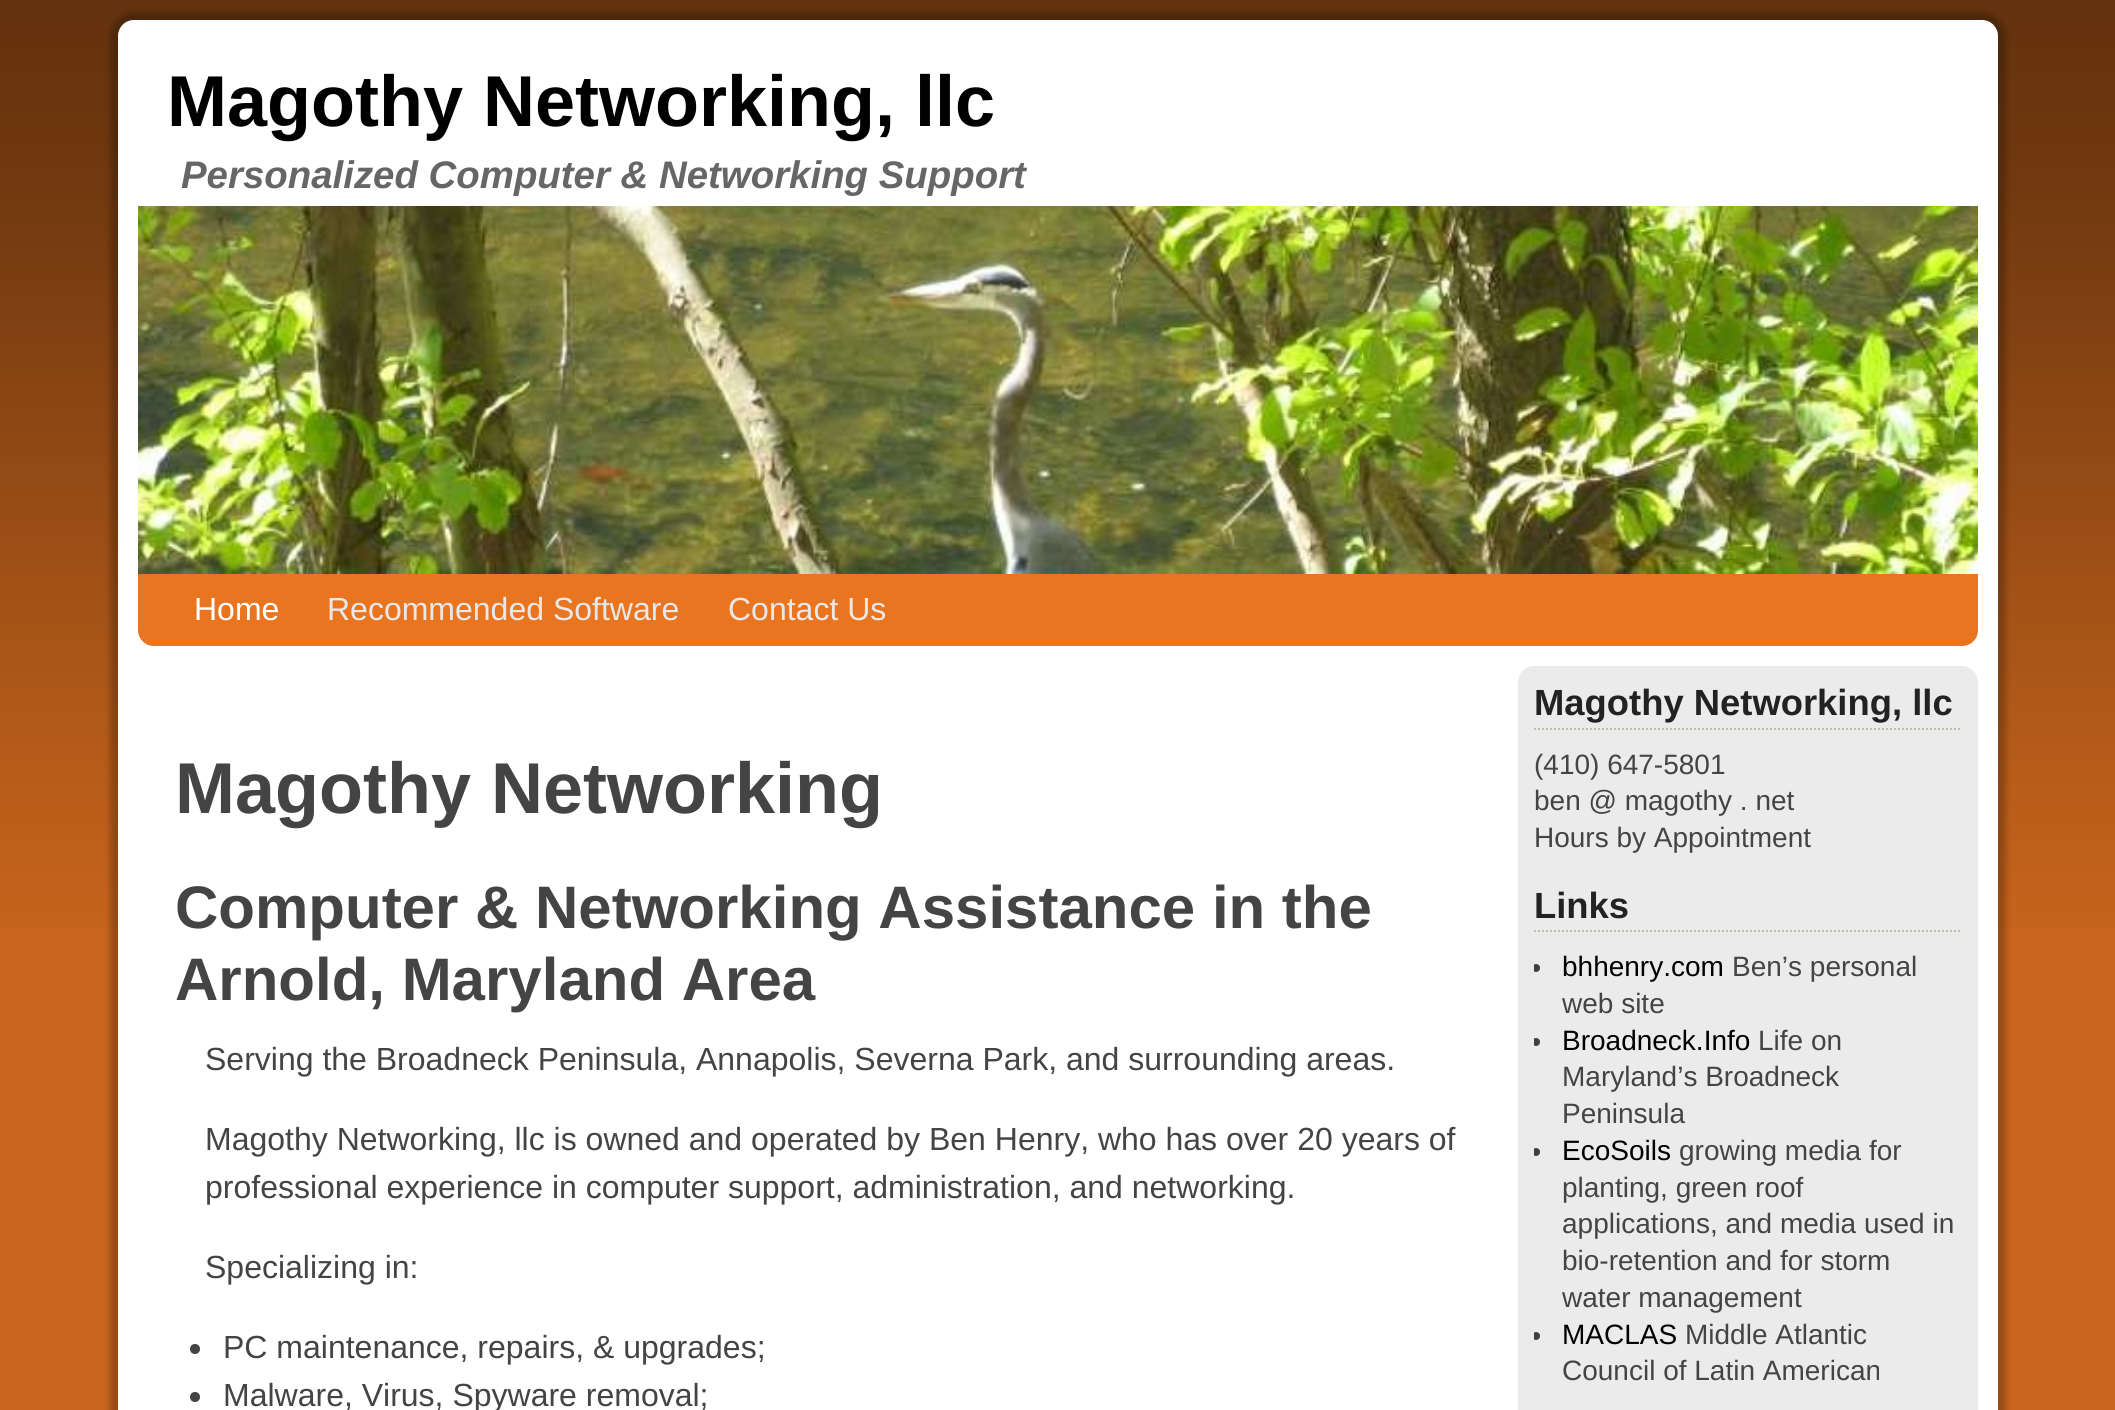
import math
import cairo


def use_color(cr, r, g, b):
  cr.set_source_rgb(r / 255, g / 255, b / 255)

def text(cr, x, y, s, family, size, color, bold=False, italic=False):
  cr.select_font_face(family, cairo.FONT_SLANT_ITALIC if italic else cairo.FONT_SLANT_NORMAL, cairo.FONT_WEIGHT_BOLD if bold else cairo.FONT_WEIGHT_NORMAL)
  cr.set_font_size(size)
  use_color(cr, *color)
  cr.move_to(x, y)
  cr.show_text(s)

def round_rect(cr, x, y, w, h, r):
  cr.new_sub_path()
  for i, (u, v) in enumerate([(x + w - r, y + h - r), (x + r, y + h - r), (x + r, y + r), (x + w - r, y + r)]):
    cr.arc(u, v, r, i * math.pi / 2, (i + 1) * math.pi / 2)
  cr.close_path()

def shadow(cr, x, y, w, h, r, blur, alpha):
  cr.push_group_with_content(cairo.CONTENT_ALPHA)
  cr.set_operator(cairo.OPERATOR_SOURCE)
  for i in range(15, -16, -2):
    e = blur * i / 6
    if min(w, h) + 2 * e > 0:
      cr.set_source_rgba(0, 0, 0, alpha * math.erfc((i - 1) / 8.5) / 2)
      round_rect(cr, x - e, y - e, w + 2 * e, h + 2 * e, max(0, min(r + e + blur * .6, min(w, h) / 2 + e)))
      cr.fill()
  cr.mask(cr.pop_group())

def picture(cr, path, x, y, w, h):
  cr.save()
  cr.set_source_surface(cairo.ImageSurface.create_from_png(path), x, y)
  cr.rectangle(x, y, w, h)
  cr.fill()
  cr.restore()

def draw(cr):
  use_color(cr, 201, 101, 28)
  cr.paint()
  picture(cr, "img_01.png", 0, 0, 2115, 927)
  use_color(cr, 0, 0, 0)
  shadow(cr, 110, 12, 1896, 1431, 24, 3, 0.25)
  use_color(cr, 255, 255, 255)
  round_rect(cr, 118, 20, 1880, 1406, 16)
  cr.fill()
  picture(cr, "img_02.png", 138, 206, 1840, 368)
  use_color(cr, 234, 117, 33)
  cr.new_path()
  cr.move_to(138, 574)
  cr.line_to(1978, 574)
  cr.line_to(1978, 630)
  cr.curve_to(1978, 639, 1971, 646, 1962, 646)
  cr.line_to(154, 646)
  cr.curve_to(145, 646, 138, 639, 138, 630)
  cr.close_path()
  cr.fill()
  use_color(cr, 68, 68, 68)
  cr.arc(195, 1349, 5, 0, 2 * math.pi)
  cr.fill()
  cr.arc(195, 1397, 5, 0, 2 * math.pi)
  cr.fill()
  use_color(cr, 235, 235, 235)
  round_rect(cr, 1518, 666, 460, 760, 16)
  cr.fill()
  cr.new_path()
  cr.move_to(1534, 729)
  cr.line_to(1962, 729)
  use_color(cr, 196, 188, 176)
  cr.set_dash([2, 2])
  cr.stroke()
  cr.new_path()
  cr.move_to(1534, 931)
  cr.line_to(1962, 931)
  cr.stroke()
  cr.save()
  cr.rectangle(1534, 884, 428, 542)
  cr.clip()
  use_color(cr, 64, 64, 64)
  cr.arc(1536, 968, 4, 0, 2 * math.pi)
  cr.fill()
  cr.arc(1536, 1042, 4, 0, 2 * math.pi)
  cr.fill()
  cr.arc(1536, 1152, 4, 0, 2 * math.pi)
  cr.fill()
  cr.arc(1536, 1336, 4, 0, 2 * math.pi)
  cr.fill()
  cr.restore()
  text(cr, 167, 126, "Magothy Networking, llc", "Liberation Sans", 72, (0, 0, 0), bold=True)
  text(cr, 181, 188, "Personalized Computer & Networking Support", "Liberation Sans", 38.4, (102, 102, 102), bold=True, italic=True)
  text(cr, 194, 620, "Home", "Liberation Sans", 32, (255, 255, 255))
  text(cr, 327, 620, "Recommended Software", "Liberation Sans", 32, (232, 232, 232))
  text(cr, 728, 620, "Contact Us", "Liberation Sans", 32, (232, 232, 232))
  text(cr, 175, 813, "Magothy Networking", "Liberation Sans", 72, (68, 68, 68), bold=True)
  text(cr, 175, 928, "Computer & Networking Assistance in the", "Liberation Sans", 60, (68, 68, 68), bold=True)
  text(cr, 175, 1000, "Arnold, Maryland Area", "Liberation Sans", 60, (68, 68, 68), bold=True)
  text(cr, 205, 1070, "Serving the Broadneck Peninsula, Annapolis, Severna Park, and surrounding areas.", "Liberation Sans", 32, (68, 68, 68))
  text(cr, 205, 1150, "Magothy Networking, llc is owned and operated by Ben Henry, who has over 20 years of", "Liberation Sans", 32, (68, 68, 68))
  text(cr, 205, 1198, "professional experience in computer support, administration, and networking.", "Liberation Sans", 32, (68, 68, 68))
  text(cr, 205, 1278, "Specializing in:", "Liberation Sans", 32, (68, 68, 68))
  text(cr, 223, 1358, "PC maintenance, repairs, & upgrades;", "Liberation Sans", 32, (68, 68, 68))
  text(cr, 223, 1406, "Malware, Virus, Spyware removal;", "Liberation Sans", 32, (68, 68, 68))
  text(cr, 1534, 715, "Magothy Networking, llc", "Liberation Sans", 36.4, (34, 34, 34), bold=True)
  text(cr, 1534, 774, "(410) 647-5801", "Liberation Sans", 28, (68, 68, 68))
  text(cr, 1534, 810, "ben @ magothy . net", "Liberation Sans", 28, (68, 68, 68))
  text(cr, 1534, 847, "Hours by Appointment", "Liberation Sans", 28, (68, 68, 68))
  text(cr, 1534, 918, "Links", "Liberation Sans", 36.4, (34, 34, 34), bold=True)
  text(cr, 1562, 976, "bhhenry.com", "Liberation Sans", 28, (0, 0, 0))
  text(cr, 1732, 976, "Ben’s personal", "Liberation Sans", 28, (68, 68, 68))
  text(cr, 1562, 1013, "web site", "Liberation Sans", 28, (68, 68, 68))
  text(cr, 1562, 1050, "Broadneck.Info", "Liberation Sans", 28, (0, 0, 0))
  text(cr, 1758, 1050, "Life on", "Liberation Sans", 28, (68, 68, 68))
  text(cr, 1562, 1086, "Maryland’s Broadneck", "Liberation Sans", 28, (68, 68, 68))
  text(cr, 1562, 1123, "Peninsula", "Liberation Sans", 28, (68, 68, 68))
  text(cr, 1562, 1160, "EcoSoils", "Liberation Sans", 28, (0, 0, 0))
  text(cr, 1679, 1160, "growing media for", "Liberation Sans", 28, (68, 68, 68))
  text(cr, 1562, 1197, "planting, green roof", "Liberation Sans", 28, (68, 68, 68))
  text(cr, 1562, 1233, "applications, and media used in", "Liberation Sans", 28, (68, 68, 68))
  text(cr, 1562, 1270, "bio-retention and for storm", "Liberation Sans", 28, (68, 68, 68))
  text(cr, 1562, 1307, "water management", "Liberation Sans", 28, (68, 68, 68))
  text(cr, 1562, 1344, "MACLAS", "Liberation Sans", 28, (0, 0, 0))
  text(cr, 1685, 1344, "Middle Atlantic", "Liberation Sans", 28, (68, 68, 68))
  text(cr, 1562, 1380, "Council of Latin American", "Liberation Sans", 28, (68, 68, 68))


surface = cairo.ImageSurface(cairo.FORMAT_RGB24, 2115, 1410)
cr = cairo.Context(surface)
options = cairo.FontOptions()
options.set_hint_metrics(cairo.HINT_METRICS_OFF)
options.set_hint_style(cairo.HINT_STYLE_NONE)
cr.set_font_options(options)
cr.set_miter_limit(4)
draw(cr)
surface.write_to_png("out.png")
